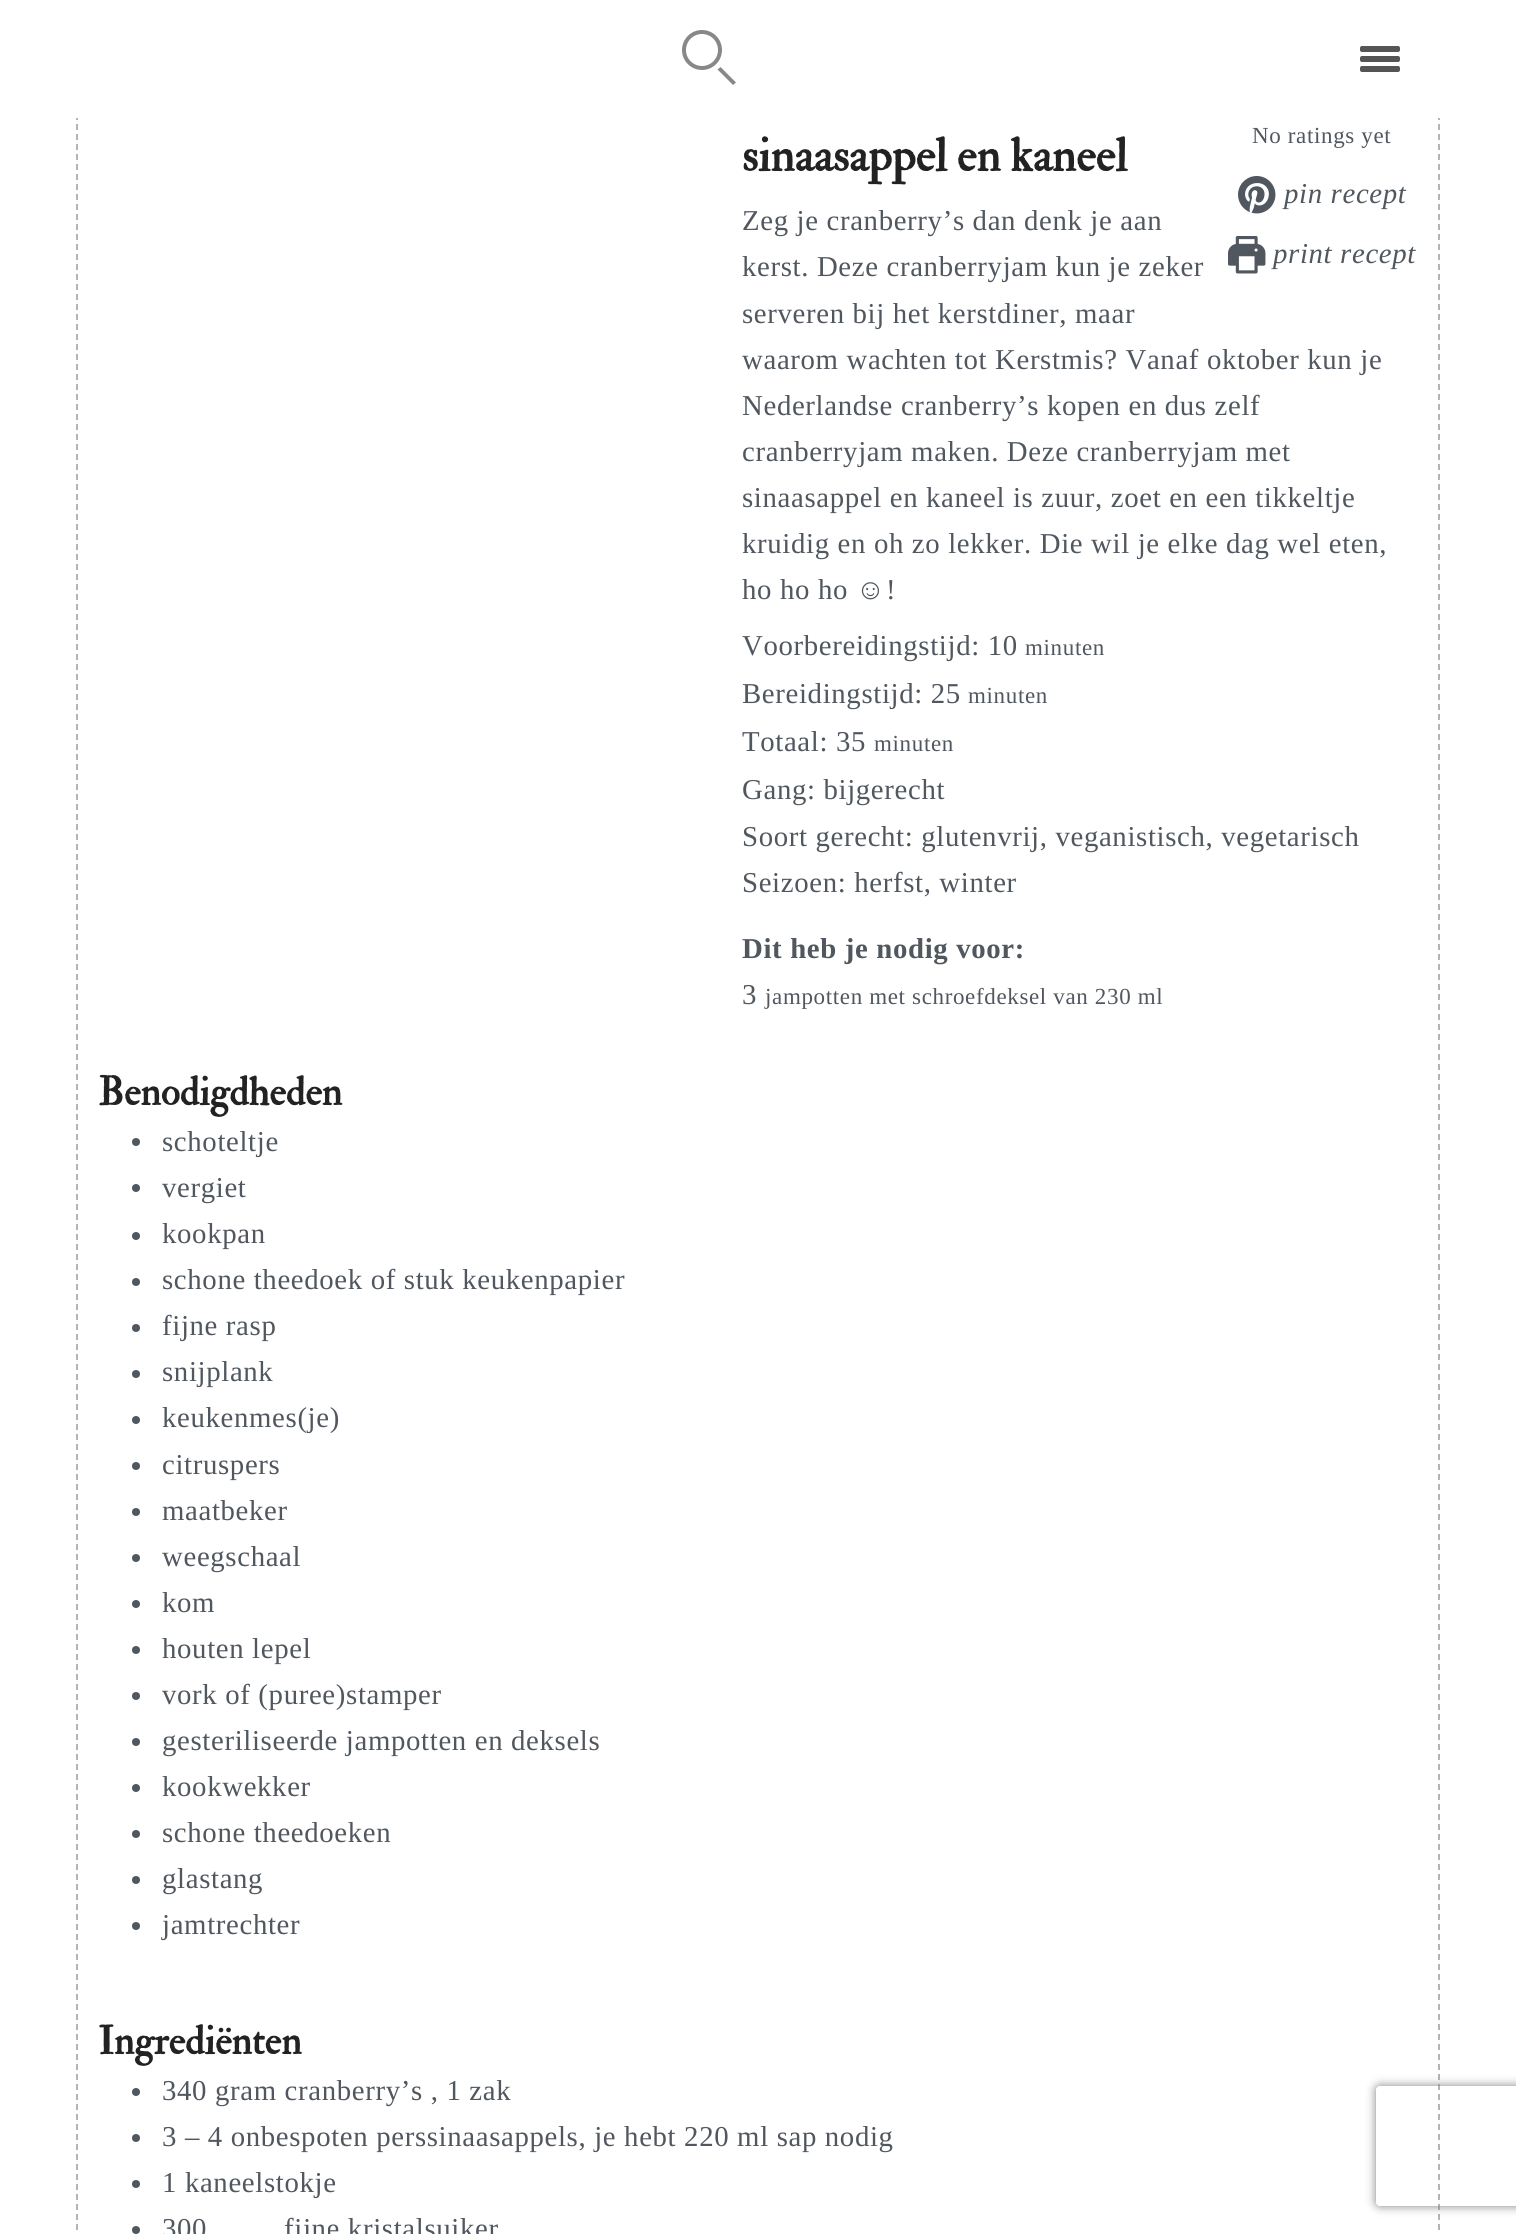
import math
import cairo


def use_color(cr, r, g, b):
  cr.set_source_rgb(r / 255, g / 255, b / 255)

def text(cr, x, y, s, family, size, color, bold=False, italic=False):
  cr.select_font_face(family, cairo.FONT_SLANT_ITALIC if italic else cairo.FONT_SLANT_NORMAL, cairo.FONT_WEIGHT_BOLD if bold else cairo.FONT_WEIGHT_NORMAL)
  cr.set_font_size(size)
  use_color(cr, *color)
  cr.move_to(x, y)
  cr.show_text(s)

def spaced_text(cr, x, y, s, letter, word):
  cr.move_to(x, y)
  for ch in s:
    cr.show_text(ch)
    cr.rel_move_to(letter + word * (ch == ' '), 0)

def box(cr, x, y, w, h, *color):
  use_color(cr, *color)
  cr.rectangle(x, y, w, h)
  cr.fill()

def round_rect(cr, x, y, w, h, r):
  cr.new_sub_path()
  for i, (u, v) in enumerate([(x + w - r, y + h - r), (x + r, y + h - r), (x + r, y + r), (x + w - r, y + r)]):
    cr.arc(u, v, r, i * math.pi / 2, (i + 1) * math.pi / 2)
  cr.close_path()

def shadow(cr, x, y, w, h, r, blur, alpha):
  cr.push_group_with_content(cairo.CONTENT_ALPHA)
  cr.set_operator(cairo.OPERATOR_SOURCE)
  for i in range(15, -16, -2):
    e = blur * i / 6
    if min(w, h) + 2 * e > 0:
      cr.set_source_rgba(0, 0, 0, alpha * math.erfc((i - 1) / 8.5) / 2)
      round_rect(cr, x - e, y - e, w + 2 * e, h + 2 * e, max(0, min(r + e + blur * .6, min(w, h) / 2 + e)))
      cr.fill()
  cr.mask(cr.pop_group())

def picture(cr, path, x, y, w, h):
  cr.save()
  cr.set_source_surface(cairo.ImageSurface.create_from_png(path), x, y)
  cr.rectangle(x, y, w, h)
  cr.fill()
  cr.restore()

def draw(cr):
  use_color(cr, 255, 255, 255)
  cr.paint()
  cr.new_path()
  cr.move_to(1439, 44)
  cr.line_to(1439, 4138)
  use_color(cr, 180, 180, 180)
  cr.set_dash([6, 4])
  cr.stroke()
  cr.new_path()
  cr.move_to(77, 44)
  cr.line_to(77, 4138)
  cr.stroke()
  box(cr, 76, 44, 1364, 74, 255, 255, 255)
  cr.arc(702, 50, 18, 0, 2 * math.pi)
  use_color(cr, 136, 136, 136)
  cr.set_line_width(4)
  cr.set_dash([])
  cr.stroke()
  cr.new_path()
  cr.move_to(720.5, 67)
  cr.line_to(736, 82.5)
  cr.line_to(733, 85)
  cr.line_to(717.5, 69.5)
  cr.close_path()
  cr.fill()
  use_color(cr, 85, 85, 85)
  round_rect(cr, 1360, 56, 40, 6, 2)
  cr.fill()
  round_rect(cr, 1360, 46, 40, 6, 2)
  cr.fill()
  round_rect(cr, 1360, 66, 40, 6, 2)
  cr.fill()
  picture(cr, "img_01.png", 1238, 176, 38, 38)
  picture(cr, "img_02.png", 1228, 236, 38, 38)
  use_color(cr, 80, 87, 95)
  cr.arc(136, 1142, 4, 0, 2 * math.pi)
  cr.fill()
  cr.arc(136, 1188, 4, 0, 2 * math.pi)
  cr.fill()
  cr.arc(136, 1236, 4, 0, 2 * math.pi)
  cr.fill()
  cr.arc(136, 1282, 4, 0, 2 * math.pi)
  cr.fill()
  cr.arc(136, 1328, 4, 0, 2 * math.pi)
  cr.fill()
  cr.arc(136, 1374, 4, 0, 2 * math.pi)
  cr.fill()
  cr.arc(136, 1420, 4, 0, 2 * math.pi)
  cr.fill()
  cr.arc(136, 1466, 4, 0, 2 * math.pi)
  cr.fill()
  cr.arc(136, 1512, 4, 0, 2 * math.pi)
  cr.fill()
  cr.arc(136, 1558, 4, 0, 2 * math.pi)
  cr.fill()
  cr.arc(136, 1604, 4, 0, 2 * math.pi)
  cr.fill()
  cr.arc(136, 1650, 4, 0, 2 * math.pi)
  cr.fill()
  cr.arc(136, 1696, 4, 0, 2 * math.pi)
  cr.fill()
  cr.arc(136, 1742, 4, 0, 2 * math.pi)
  cr.fill()
  cr.arc(136, 1788, 4, 0, 2 * math.pi)
  cr.fill()
  cr.arc(136, 1834, 4, 0, 2 * math.pi)
  cr.fill()
  cr.arc(136, 1880, 4, 0, 2 * math.pi)
  cr.fill()
  cr.arc(136, 1926, 4, 0, 2 * math.pi)
  cr.fill()
  cr.arc(136, 2092, 4, 0, 2 * math.pi)
  cr.fill()
  cr.arc(136, 2138, 4, 0, 2 * math.pi)
  cr.fill()
  cr.arc(136, 2184, 4, 0, 2 * math.pi)
  cr.fill()
  cr.arc(136, 2230, 4, 0, 2 * math.pi)
  cr.fill()
  cr.save()
  cr.set_fill_rule(cairo.FILL_RULE_EVEN_ODD)
  cr.new_path()
  cr.move_to(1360, 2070)
  cr.line_to(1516, 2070)
  cr.line_to(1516, 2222)
  cr.line_to(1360, 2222)
  cr.close_path()
  cr.move_to(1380, 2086)
  cr.line_to(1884, 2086)
  cr.curve_to(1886, 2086, 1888, 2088, 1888, 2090)
  cr.line_to(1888, 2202)
  cr.curve_to(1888, 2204, 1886, 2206, 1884, 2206)
  cr.line_to(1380, 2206)
  cr.curve_to(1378, 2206, 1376, 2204, 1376, 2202)
  cr.line_to(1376, 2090)
  cr.curve_to(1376, 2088, 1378, 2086, 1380, 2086)
  cr.close_path()
  cr.clip()
  use_color(cr, 128, 128, 128)
  shadow(cr, 1376, 2086, 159, 120, 4, 5, 1)
  cr.restore()
  text(cr, 742, 171, "sinaasappel en kaneel", "IM FELL Double Pica", 46.75, (34, 34, 34), bold=True)
  cr.select_font_face("Liberation Serif")
  cr.set_font_size(23)
  use_color(cr, 80, 87, 95)
  spaced_text(cr, 1252, 143, "No ratings yet", 0.65, 0)
  cr.select_font_face("Liberation Serif", cairo.FONT_SLANT_ITALIC)
  cr.set_font_size(28.8)
  spaced_text(cr, 1284, 203, "pin recept", 0.65, 0)
  spaced_text(cr, 1273, 263, "print recept", 0.65, 0)
  cr.select_font_face("Liberation Serif")
  spaced_text(cr, 742, 230, "Zeg je cranberry’s dan denk je aan", 0.65, 0)
  spaced_text(cr, 742, 276, "kerst. Deze cranberryjam kun je zeker", 0.65, 0)
  spaced_text(cr, 742, 323, "serveren bij het kerstdiner, maar", 0.65, 0)
  spaced_text(cr, 742, 369, "waarom wachten tot Kerstmis? Vanaf oktober kun je", 0.65, 0)
  spaced_text(cr, 742, 415, "Nederlandse cranberry’s kopen en dus zelf", 0.65, 0)
  spaced_text(cr, 742, 461, "cranberryjam maken. Deze cranberryjam met", 0.65, 0)
  spaced_text(cr, 742, 507, "sinaasappel en kaneel is zuur, zoet en een tikkeltje", 0.65, 0)
  spaced_text(cr, 742, 553, "kruidig en oh zo lekker. Die wil je elke dag wel eten,", 0.65, 0)
  spaced_text(cr, 742, 599, "ho ho ho ☺!", 0.65, 0)
  spaced_text(cr, 742, 655, "Voorbereidingstijd: 10", 0.65, 0)
  cr.set_font_size(23)
  spaced_text(cr, 1025, 655, "minuten", 0.65, 0)
  cr.set_font_size(28.8)
  spaced_text(cr, 742, 703, "Bereidingstijd: 25", 0.65, 0)
  cr.set_font_size(23)
  spaced_text(cr, 968, 703, "minuten", 0.65, 0)
  cr.set_font_size(28.8)
  spaced_text(cr, 742, 751, "Totaal: 35", 0.65, 0)
  cr.set_font_size(23)
  spaced_text(cr, 874, 751, "minuten", 0.65, 0)
  cr.set_font_size(28.8)
  spaced_text(cr, 742, 799, "Gang: bijgerecht", 0.65, 0)
  spaced_text(cr, 742, 846, "Soort gerecht: glutenvrij, veganistisch, vegetarisch", 0.65, 0)
  spaced_text(cr, 742, 892, "Seizoen: herfst, winter", 0.65, 0)
  cr.select_font_face("Liberation Serif", cairo.FONT_SLANT_NORMAL, cairo.FONT_WEIGHT_BOLD)
  spaced_text(cr, 742, 958, "Dit heb je nodig voor:", 0.65, 0)
  cr.select_font_face("Liberation Serif")
  spaced_text(cr, 742, 1004, "3", 0.65, 0)
  cr.set_font_size(23)
  spaced_text(cr, 765, 1004, "jampotten met schroefdeksel van 230 ml", 0.65, 0)
  text(cr, 98, 1105, "Benodigdheden", "IM FELL Double Pica", 39.5, (34, 34, 34), bold=True)
  cr.select_font_face("Liberation Serif")
  cr.set_font_size(28.8)
  use_color(cr, 80, 87, 95)
  spaced_text(cr, 162, 1151, "schoteltje", 0.65, 0)
  spaced_text(cr, 162, 1197, "vergiet", 0.65, 0)
  spaced_text(cr, 162, 1243, "kookpan", 0.65, 0)
  spaced_text(cr, 162, 1289, "schone theedoek of stuk keukenpapier", 0.65, 0)
  spaced_text(cr, 162, 1335, "fijne rasp", 0.65, 0)
  spaced_text(cr, 162, 1381, "snijplank", 0.65, 0)
  spaced_text(cr, 162, 1427, "keukenmes(je)", 0.65, 0)
  spaced_text(cr, 162, 1474, "citruspers", 0.65, 0)
  spaced_text(cr, 162, 1520, "maatbeker", 0.65, 0)
  spaced_text(cr, 162, 1566, "weegschaal", 0.65, 0)
  spaced_text(cr, 162, 1612, "kom", 0.65, 0)
  spaced_text(cr, 162, 1658, "houten lepel", 0.65, 0)
  spaced_text(cr, 162, 1704, "vork of (puree)stamper", 0.65, 0)
  spaced_text(cr, 162, 1750, "gesteriliseerde jampotten en deksels", 0.65, 0)
  spaced_text(cr, 162, 1796, "kookwekker", 0.65, 0)
  spaced_text(cr, 162, 1842, "schone theedoeken", 0.65, 0)
  spaced_text(cr, 162, 1888, "glastang", 0.65, 0)
  spaced_text(cr, 162, 1934, "jamtrechter", 0.65, 0)
  text(cr, 98, 2054, "Ingrediënten", "IM FELL Double Pica", 39.5, (34, 34, 34), bold=True)
  cr.select_font_face("Liberation Serif")
  cr.set_font_size(28.8)
  use_color(cr, 80, 87, 95)
  spaced_text(cr, 162, 2100, "340 gram cranberry’s , 1 zak", 0.65, 0)
  spaced_text(cr, 162, 2146, "3 – 4 onbespoten perssinaasappels, je hebt 220 ml sap nodig", 0.65, 0)
  spaced_text(cr, 162, 2192, "1 kaneelstokje", 0.65, 0)
  spaced_text(cr, 162, 2238, "300", 0.65, 0)
  spaced_text(cr, 284, 2238, "fijne kristalsuiker", 0.65, 0)


surface = cairo.ImageSurface(cairo.FORMAT_RGB24, 1516, 2234)
cr = cairo.Context(surface)
options = cairo.FontOptions()
options.set_hint_metrics(cairo.HINT_METRICS_OFF)
options.set_hint_style(cairo.HINT_STYLE_NONE)
cr.set_font_options(options)
cr.set_miter_limit(4)
draw(cr)
surface.write_to_png("out.png")
